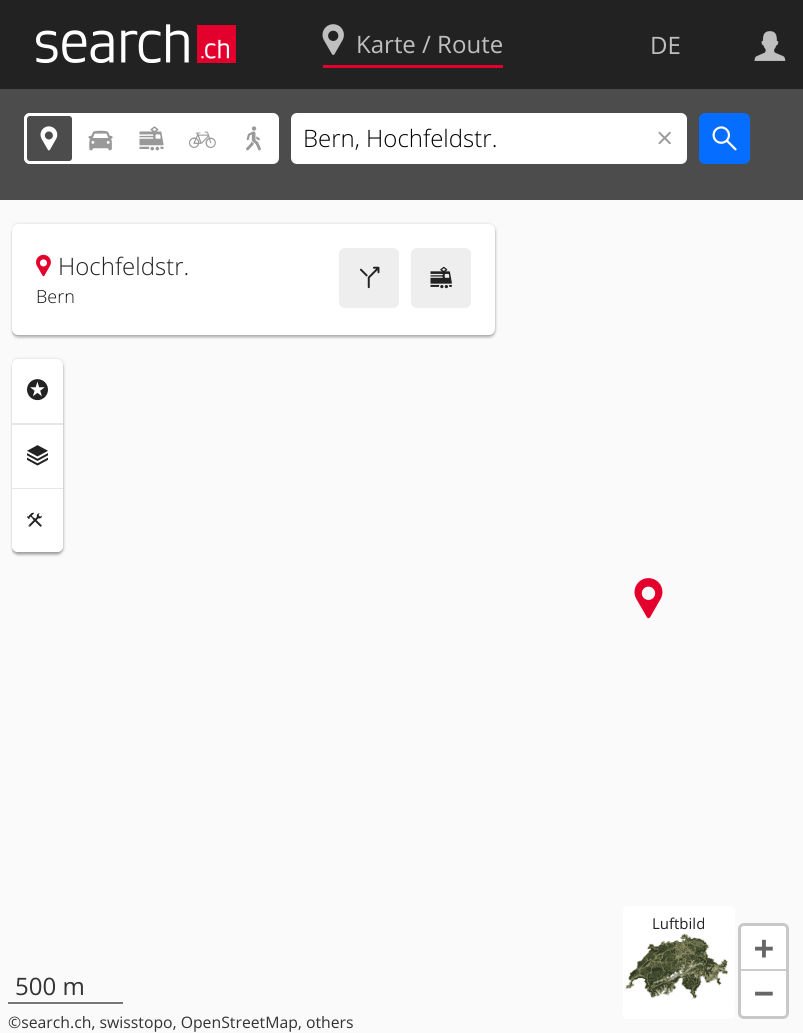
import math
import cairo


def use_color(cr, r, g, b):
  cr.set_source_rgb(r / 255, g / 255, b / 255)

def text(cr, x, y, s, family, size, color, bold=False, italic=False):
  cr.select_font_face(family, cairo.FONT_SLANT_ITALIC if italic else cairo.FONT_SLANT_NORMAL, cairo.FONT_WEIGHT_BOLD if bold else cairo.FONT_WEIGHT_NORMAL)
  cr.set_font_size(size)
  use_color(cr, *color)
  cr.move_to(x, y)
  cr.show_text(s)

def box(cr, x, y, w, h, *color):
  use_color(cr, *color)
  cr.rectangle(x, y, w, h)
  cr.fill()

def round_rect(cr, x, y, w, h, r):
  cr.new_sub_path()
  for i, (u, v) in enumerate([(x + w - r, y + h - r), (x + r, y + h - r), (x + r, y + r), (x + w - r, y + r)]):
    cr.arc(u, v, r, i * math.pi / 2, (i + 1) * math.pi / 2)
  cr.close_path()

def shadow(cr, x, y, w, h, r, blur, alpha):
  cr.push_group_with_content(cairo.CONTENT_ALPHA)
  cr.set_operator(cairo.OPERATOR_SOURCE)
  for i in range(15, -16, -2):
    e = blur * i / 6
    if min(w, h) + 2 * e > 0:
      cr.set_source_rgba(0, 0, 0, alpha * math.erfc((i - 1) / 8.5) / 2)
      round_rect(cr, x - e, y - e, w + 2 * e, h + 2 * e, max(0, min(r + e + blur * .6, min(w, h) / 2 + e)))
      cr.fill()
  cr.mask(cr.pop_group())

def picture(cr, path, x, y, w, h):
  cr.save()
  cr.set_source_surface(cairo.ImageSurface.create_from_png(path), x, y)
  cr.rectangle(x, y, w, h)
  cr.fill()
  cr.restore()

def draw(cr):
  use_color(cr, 250, 250, 250)
  cr.paint()
  box(cr, 0, 0, 803, 89, 34, 34, 34)
  picture(cr, "img_01.png", 36, 24, 200, 39)
  box(cr, 323, 65, 180, 3, 228, 0, 44)
  picture(cr, "img_02.png", 322, 24, 22, 31)
  picture(cr, "img_03.png", 754, 31, 32, 30)
  box(cr, 0, 89, 803, 111, 76, 76, 76)
  use_color(cr, 255, 255, 255)
  round_rect(cr, 24, 113, 255, 51, 6)
  cr.fill()
  use_color(cr, 76, 76, 76)
  round_rect(cr, 25.5, 114.5, 48, 48, 4.5)
  cr.fill_preserve()
  use_color(cr, 255, 255, 255)
  cr.set_line_width(3)
  cr.stroke()
  picture(cr, "img_04.png", 40, 126, 18, 25)
  picture(cr, "img_05.png", 88, 130, 25, 21)
  picture(cr, "img_06.png", 139, 126, 25, 25)
  picture(cr, "img_07.png", 189, 131, 27, 17)
  picture(cr, "img_08.png", 246, 126, 15, 25)
  round_rect(cr, 291, 113, 396, 51, 6)
  cr.fill()
  picture(cr, "img_09.png", 658, 131, 13, 14)
  use_color(cr, 5, 109, 255)
  round_rect(cr, 699, 113, 51, 51, 6)
  cr.fill()
  picture(cr, "img_10.png", 712, 126, 25, 25)
  cr.save()
  cr.rectangle(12, 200, 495, 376)
  cr.clip()
  use_color(cr, 0, 0, 0)
  shadow(cr, 12, 225, 483, 111, 6, 2, 0.2)
  cr.restore()
  use_color(cr, 0, 0, 0)
  shadow(cr, 12, 227, 483, 111, 6, 1, 0.12)
  shadow(cr, 12, 225, 483, 111, 6, 1, 0.14)
  use_color(cr, 255, 255, 255)
  round_rect(cr, 12, 224, 483, 111, 6)
  cr.fill()
  picture(cr, "img_11.png", 36, 254, 15, 23)
  use_color(cr, 238, 238, 238)
  round_rect(cr, 339, 248, 60, 60, 6)
  cr.fill()
  picture(cr, "img_12.png", 360, 266, 20, 23)
  round_rect(cr, 411, 248, 60, 60, 6)
  cr.fill()
  picture(cr, "img_13.png", 430, 266, 22, 23)
  cr.save()
  cr.rectangle(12, 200, 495, 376)
  cr.clip()
  use_color(cr, 0, 0, 0)
  shadow(cr, 12, 360, 51, 194, 6, 2, 0.2)
  cr.restore()
  use_color(cr, 0, 0, 0)
  shadow(cr, 12, 362, 51, 193, 6, 1, 0.12)
  shadow(cr, 12, 360, 51, 194, 6, 1, 0.14)
  use_color(cr, 255, 255, 255)
  round_rect(cr, 12, 359, 51, 193, 6)
  cr.fill()
  box(cr, 12, 423, 51, 2, 230, 230, 230)
  picture(cr, "img_14.png", 27, 379, 21, 22)
  box(cr, 12, 488, 51, 1, 230, 230, 230)
  picture(cr, "img_15.png", 27, 445, 21, 21)
  cr.save()
  round_rect(cr, 12, 359, 51, 193, 5)
  cr.clip()
  use_color(cr, 255, 255, 255)
  cr.new_path()
  cr.move_to(12, 489)
  cr.line_to(63, 489)
  cr.line_to(63, 546)
  cr.curve_to(63, 549.5, 60.5, 552, 57, 552)
  cr.line_to(18, 552)
  cr.curve_to(14.5, 552, 12, 549.5, 12, 546)
  cr.close_path()
  cr.fill()
  cr.restore()
  picture(cr, "img_16.png", 27, 512, 15, 15)
  use_color(cr, 255, 255, 255)
  round_rect(cr, 623, 906, 112, 113, 5)
  cr.fill()
  picture(cr, "img_17.png", 625, 933, 106, 68)
  picture(cr, "img_18.png", 634, 578, 29, 41)
  round_rect(cr, 739.5, 924.5, 48, 93, 4.5)
  use_color(cr, 200, 200, 200)
  cr.stroke()
  use_color(cr, 255, 255, 255)
  cr.new_path()
  cr.move_to(744, 926)
  cr.line_to(783, 926)
  cr.curve_to(784.5, 926, 786, 927.5, 786, 929)
  cr.line_to(786, 971)
  cr.line_to(741, 971)
  cr.line_to(741, 929)
  cr.curve_to(741, 927.5, 742.5, 926, 744, 926)
  cr.close_path()
  cr.fill()
  box(cr, 741, 969, 45, 2, 204, 204, 204)
  use_color(cr, 255, 255, 255)
  cr.new_path()
  cr.move_to(741, 971)
  cr.line_to(786, 971)
  cr.line_to(786, 1013)
  cr.curve_to(786, 1014.5, 784.5, 1016, 783, 1016)
  cr.line_to(744, 1016)
  cr.curve_to(742.5, 1016, 741, 1014.5, 741, 1013)
  cr.close_path()
  cr.fill()
  box(cr, 8, 1004, 115, 1, 253, 253, 253)
  box(cr, 8, 1001, 115, 1, 253, 253, 253)
  box(cr, 8, 1002, 115, 2, 119, 119, 119)
  text(cr, 356, 53, "Karte / Route", "Open Sans", 24, (191, 191, 191))
  text(cr, 650, 54, "DE", "Open Sans", 24, (191, 191, 191))
  text(cr, 303, 147, "Bern, Hochfeldstr.", "Open Sans Light", 24, (0, 0, 0))
  text(cr, 58, 275, "Hochfeldstr.", "Open Sans Light", 24, (34, 34, 34))
  text(cr, 36, 303, "Bern", "Open Sans Light", 18, (17, 17, 17))
  text(cr, 652, 929, "Luftbild", "Open Sans", 15, (34, 34, 34))
  text(cr, 754, 959, "+", "DejaVu Sans Mono", 33, (102, 102, 102), bold=True)
  text(cr, 754, 1004, "−", "DejaVu Sans Mono", 33, (102, 102, 102), bold=True)
  text(cr, 15, 995, "500 m", "Open Sans", 24, (51, 51, 51))
  text(cr, 8, 1028, "©search.ch, swisstopo, OpenStreetMap, others", "Open Sans", 15.8, (51, 51, 51))


surface = cairo.ImageSurface(cairo.FORMAT_RGB24, 803, 1033)
cr = cairo.Context(surface)
options = cairo.FontOptions()
options.set_hint_metrics(cairo.HINT_METRICS_OFF)
options.set_hint_style(cairo.HINT_STYLE_NONE)
cr.set_font_options(options)
cr.set_miter_limit(4)
draw(cr)
surface.write_to_png("out.png")
